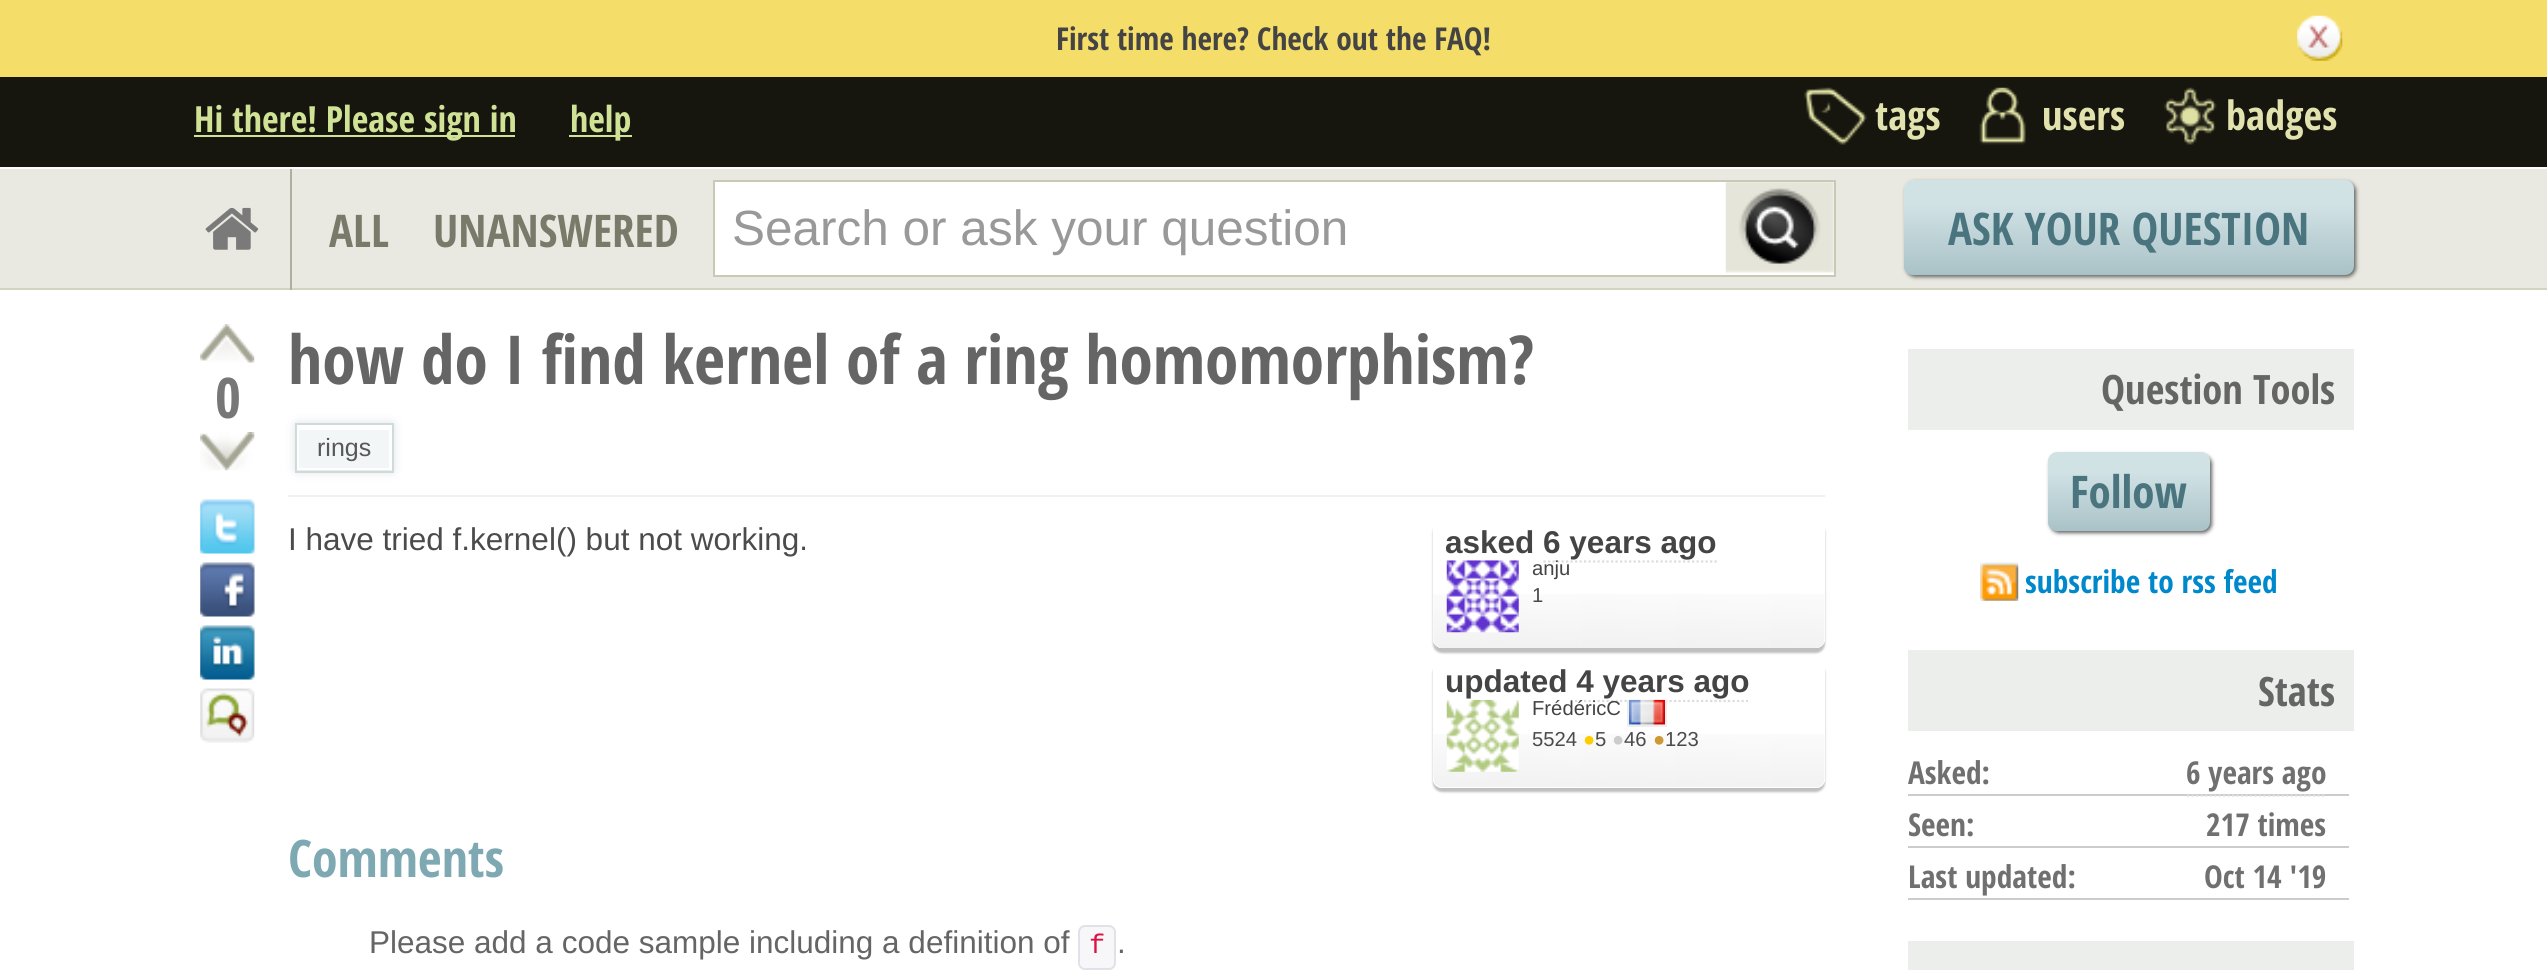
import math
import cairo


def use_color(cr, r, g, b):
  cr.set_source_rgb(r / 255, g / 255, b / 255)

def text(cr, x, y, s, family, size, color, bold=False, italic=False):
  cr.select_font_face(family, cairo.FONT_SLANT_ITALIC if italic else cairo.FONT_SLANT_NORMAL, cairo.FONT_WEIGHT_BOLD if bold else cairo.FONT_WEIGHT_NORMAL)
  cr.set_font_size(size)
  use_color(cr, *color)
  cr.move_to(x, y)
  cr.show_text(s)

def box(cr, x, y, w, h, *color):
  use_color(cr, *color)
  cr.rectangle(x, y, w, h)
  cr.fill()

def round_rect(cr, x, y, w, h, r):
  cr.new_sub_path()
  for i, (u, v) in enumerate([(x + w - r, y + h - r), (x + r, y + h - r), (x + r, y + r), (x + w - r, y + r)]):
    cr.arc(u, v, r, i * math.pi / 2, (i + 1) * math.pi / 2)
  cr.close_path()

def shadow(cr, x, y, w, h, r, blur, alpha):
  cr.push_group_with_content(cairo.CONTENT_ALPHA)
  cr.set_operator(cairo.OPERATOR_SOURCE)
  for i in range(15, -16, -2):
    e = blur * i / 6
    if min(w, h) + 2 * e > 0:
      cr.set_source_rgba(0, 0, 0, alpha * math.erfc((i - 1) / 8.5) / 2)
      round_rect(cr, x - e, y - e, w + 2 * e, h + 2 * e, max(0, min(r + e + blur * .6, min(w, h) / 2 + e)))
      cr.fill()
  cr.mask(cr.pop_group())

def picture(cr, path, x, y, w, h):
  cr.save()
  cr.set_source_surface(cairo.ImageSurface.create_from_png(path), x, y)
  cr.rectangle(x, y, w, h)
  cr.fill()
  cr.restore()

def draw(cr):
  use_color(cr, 255, 255, 255)
  cr.paint()
  box(cr, 0, 0, 2547, 77, 245, 221, 105)
  picture(cr, "img_01.png", 2297, 15, 46, 46)
  box(cr, 0, 77, 2547, 90, 22, 22, 15)
  box(cr, 194, 135, 321, 2, 208, 226, 150)
  box(cr, 569, 135, 63, 2, 208, 226, 150)
  picture(cr, "img_02.png", 1804, 87, 63, 58)
  picture(cr, "img_03.png", 1979, 87, 47, 58)
  picture(cr, "img_04.png", 2164, 87, 53, 58)
  box(cr, 0, 169, 2547, 119, 233, 233, 225)
  box(cr, 0, 167, 2547, 2, 252, 252, 252)
  box(cr, 0, 288, 2547, 2, 211, 211, 194)
  box(cr, 290, 169, 2, 121, 175, 175, 158)
  picture(cr, "img_05.png", 205, 207, 54, 43)
  use_color(cr, 255, 255, 255)
  cr.rectangle(714, 181, 1121, 95)
  cr.fill_preserve()
  use_color(cr, 201, 201, 181)
  cr.stroke()
  picture(cr, "img_06.png", 1725, 182, 109, 91)
  use_color(cr, 99, 99, 99)
  shadow(cr, 1906, 182, 450, 95, 9, 2, 1)
  gradient = cairo.LinearGradient(2129, 180, 2129, 275)
  gradient.add_color_stop_rgba(0, 0.82, 0.886, 0.898, 1)
  gradient.add_color_stop_rgba(0.25, 0.82, 0.886, 0.898, 1)
  gradient.add_color_stop_rgba(1, 0.663, 0.761, 0.78, 1)
  cr.set_source(gradient)
  round_rect(cr, 1904, 180, 450, 95, 9)
  cr.fill()
  picture(cr, "img_07.png", 200, 324, 55, 39)
  picture(cr, "img_08.png", 200, 432, 55, 39)
  picture(cr, "img_09.png", 200, 499, 55, 55)
  picture(cr, "img_10.png", 200, 562, 55, 55)
  picture(cr, "img_11.png", 200, 625, 55, 55)
  picture(cr, "img_12.png", 200, 688, 55, 55)
  cr.save()
  cr.set_fill_rule(cairo.FILL_RULE_EVEN_ODD)
  cr.new_path()
  cr.move_to(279, 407)
  cr.line_to(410, 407)
  cr.line_to(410, 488)
  cr.line_to(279, 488)
  cr.close_path()
  cr.move_to(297, 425)
  cr.line_to(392, 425)
  cr.line_to(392, 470)
  cr.line_to(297, 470)
  cr.close_path()
  cr.clip()
  use_color(cr, 211, 214, 215)
  shadow(cr, 297, 425, 95, 45, 0, 5.5, 1)
  cr.restore()
  box(cr, 299, 430, 90, 38, 243, 246, 246)
  box(cr, 297, 425, 95, 5, 255, 255, 255)
  box(cr, 391, 468, 1, 2, 255, 255, 255)
  cr.rectangle(296, 424, 97, 48)
  use_color(cr, 207, 219, 219)
  cr.stroke()
  box(cr, 288, 495, 1537, 2, 240, 240, 240)
  cr.save()
  cr.set_fill_rule(cairo.FILL_RULE_EVEN_ODD)
  cr.new_path()
  cr.move_to(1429, 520)
  cr.line_to(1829, 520)
  cr.line_to(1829, 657)
  cr.line_to(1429, 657)
  cr.close_path()
  cr.move_to(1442, 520)
  cr.line_to(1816, 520)
  cr.curve_to(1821, 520, 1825, 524, 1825, 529)
  cr.line_to(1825, 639)
  cr.curve_to(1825, 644, 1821, 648, 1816, 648)
  cr.line_to(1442, 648)
  cr.curve_to(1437, 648, 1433, 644, 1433, 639)
  cr.line_to(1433, 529)
  cr.curve_to(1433, 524, 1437, 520, 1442, 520)
  cr.close_path()
  cr.clip()
  use_color(cr, 191, 191, 191)
  shadow(cr, 1433, 524, 392, 129, 9, 1, 1)
  cr.restore()
  use_color(cr, 255, 255, 255)
  round_rect(cr, 1433, 520, 392, 128, 9)
  cr.fill()
  picture(cr, "img_13.png", 1433, 594, 392, 54)
  cr.new_path()
  cr.move_to(1543.5, 561.5)
  cr.line_to(1717, 561.5)
  use_color(cr, 221, 221, 221)
  cr.set_line_width(2.2)
  cr.set_dash([2.25, 2.25])
  cr.stroke()
  picture(cr, "img_14.png", 1446, 560, 73, 73)
  cr.save()
  cr.set_fill_rule(cairo.FILL_RULE_EVEN_ODD)
  cr.new_path()
  cr.move_to(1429, 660)
  cr.line_to(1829, 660)
  cr.line_to(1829, 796)
  cr.line_to(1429, 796)
  cr.close_path()
  cr.move_to(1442, 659)
  cr.line_to(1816, 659)
  cr.curve_to(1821, 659, 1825, 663, 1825, 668)
  cr.line_to(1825, 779)
  cr.curve_to(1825, 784, 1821, 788, 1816, 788)
  cr.line_to(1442, 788)
  cr.curve_to(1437, 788, 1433, 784, 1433, 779)
  cr.line_to(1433, 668)
  cr.curve_to(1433, 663, 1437, 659, 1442, 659)
  cr.close_path()
  cr.clip()
  use_color(cr, 191, 191, 191)
  shadow(cr, 1433, 664, 392, 128, 9, 1, 1)
  cr.restore()
  use_color(cr, 255, 255, 255)
  round_rect(cr, 1433, 659, 392, 129, 9)
  cr.fill()
  picture(cr, "img_15.png", 1433, 734, 392, 53)
  cr.new_path()
  cr.move_to(1575, 701)
  cr.line_to(1748, 701)
  use_color(cr, 221, 221, 221)
  cr.stroke()
  picture(cr, "img_16.png", 1446, 699, 73, 73)
  use_color(cr, 247, 247, 249)
  round_rect(cr, 1079, 926, 36, 43, 6)
  cr.fill_preserve()
  use_color(cr, 225, 225, 232)
  cr.set_line_width(2)
  cr.set_dash([])
  cr.stroke()
  box(cr, 1908, 349, 446, 81, 236, 238, 235)
  use_color(cr, 99, 99, 99)
  shadow(cr, 2050, 455, 162, 78, 9, 2, 1)
  gradient = cairo.LinearGradient(2129, 452, 2129, 531)
  gradient.add_color_stop_rgba(0, 0.82, 0.886, 0.898, 1)
  gradient.add_color_stop_rgba(0.25, 0.82, 0.886, 0.898, 1)
  gradient.add_color_stop_rgba(1, 0.663, 0.761, 0.78, 1)
  cr.set_source(gradient)
  round_rect(cr, 2048, 452, 162, 79, 9)
  cr.fill()
  picture(cr, "img_18.png", 1980, 562, 39, 39)
  box(cr, 1908, 650, 446, 81, 236, 238, 235)
  box(cr, 1908, 794, 441, 2, 204, 204, 204)
  cr.new_path()
  cr.move_to(2187, 795.5)
  cr.line_to(2326.5, 795.5)
  use_color(cr, 221, 221, 221)
  cr.set_line_width(2.2)
  cr.set_dash([2.25, 2.25])
  cr.stroke()
  box(cr, 1908, 846, 441, 2, 204, 204, 204)
  box(cr, 1908, 898, 441, 2, 204, 204, 204)
  box(cr, 1908, 941, 446, 29, 236, 238, 235)
  text(cr, 1056, 50, "First time here? Check out the FAQ!", "Open Sans Condensed", 31.5, (68, 68, 68), bold=True)
  text(cr, 194, 132, "Hi there! Please sign in", "Open Sans Condensed", 36, (208, 226, 150), bold=True)
  text(cr, 570, 132, "help", "Open Sans Condensed", 36, (208, 226, 150), bold=True)
  text(cr, 1875, 130, "tags", "Open Sans Condensed", 40.5, (226, 226, 174), bold=True)
  text(cr, 2042, 130, "users", "Open Sans Condensed", 40.5, (226, 226, 174), bold=True)
  text(cr, 2226, 130, "badges", "Open Sans Condensed", 40.5, (226, 226, 174), bold=True)
  text(cr, 329, 247, "ALL", "Open Sans Condensed", 45, (122, 122, 107), bold=True)
  text(cr, 433, 247, "UNANSWERED", "Open Sans Condensed", 45, (122, 122, 107), bold=True)
  text(cr, 732, 245, "Search or ask your question", "Liberation Sans", 49.5, (153, 153, 153))
  text(cr, 1948, 245, "ASK YOUR QUESTION", "Open Sans Condensed", 45, (74, 117, 127), bold=True)
  text(cr, 215, 418, "0", "Open Sans Condensed", 56, (119, 119, 119), bold=True)
  text(cr, 288, 384, "how do I find kernel of a ring homomorphism?", "Open Sans Condensed", 67.5, (101, 101, 101), bold=True)
  text(cr, 317, 456, "rings", "Liberation Sans", 25, (88, 88, 88))
  text(cr, 288, 550, "I have tried f.kernel() but not working.", "Liberation Sans", 31.5, (75, 75, 75))
  text(cr, 1445, 553, "asked 6 years ago", "Liberation Sans", 31.5, (68, 68, 68), bold=True)
  text(cr, 1532, 575, "anju", "Liberation Sans", 20.25, (68, 68, 68))
  text(cr, 1532, 602, "1", "Liberation Sans", 20.25, (75, 75, 75))
  text(cr, 1445, 692, "updated 4 years ago", "Liberation Sans", 31.5, (68, 68, 68), bold=True)
  cr.save()
  cr.rectangle(1442, 700, 374, 79)
  cr.clip()
  cr.rectangle(1628, 699, 38, 27)
  use_color(cr, 238, 238, 238)
  cr.set_line_width(2)
  cr.set_dash([])
  cr.stroke()
  cr.restore()
  text(cr, 1532, 715, "FrédéricC", "Liberation Sans", 20.25, (68, 68, 68))
  picture(cr, "img_17.png", 1629, 699, 36, 26)
  text(cr, 1532, 746, "5524", "Liberation Sans", 20.25, (75, 75, 75))
  text(cr, 1583, 746, "●", "Liberation Sans", 20.25, (255, 204, 0))
  text(cr, 1595, 746, "5", "Liberation Sans", 20.25, (75, 75, 75))
  text(cr, 1612, 746, "●", "Liberation Sans", 20.25, (204, 204, 204))
  text(cr, 1624, 746, "46", "Liberation Sans", 20.25, (75, 75, 75))
  text(cr, 1653, 746, "●", "Liberation Sans", 20.25, (204, 153, 51))
  text(cr, 1665, 746, "123", "Liberation Sans", 20.25, (75, 75, 75))
  text(cr, 288, 877, "Comments", "Open Sans Condensed", 51.75, (126, 169, 179), bold=True)
  text(cr, 369, 953, "Please add a code sample including a definition of", "Liberation Sans", 31.5, (101, 101, 101))
  text(cr, 1089, 953, "f", "Liberation Mono", 27, (221, 17, 68))
  text(cr, 1117, 953, ".", "Liberation Sans", 31.5, (101, 101, 101))
  text(cr, 2101, 404, "Question Tools", "Open Sans Condensed", 40.5, (101, 101, 101), bold=True)
  text(cr, 2070, 508, "Follow", "Open Sans Condensed", 45, (74, 117, 127), bold=True)
  text(cr, 2025, 593, "subscribe to rss feed", "Open Sans Condensed", 31.5, (0, 136, 204), bold=True)
  text(cr, 2258, 706, "Stats", "Open Sans Condensed", 40.5, (101, 101, 101), bold=True)
  text(cr, 1908, 784, "Asked:", "Open Sans Condensed", 31.5, (112, 112, 112), bold=True)
  text(cr, 2186, 784, "6 years ago", "Open Sans Condensed", 31.5, (112, 112, 112), bold=True)
  text(cr, 1908, 836, "Seen:", "Open Sans Condensed", 31.5, (112, 112, 112), bold=True)
  text(cr, 2206, 836, "217 times", "Open Sans Condensed", 31.5, (112, 112, 112), bold=True)
  text(cr, 1908, 888, "Last updated:", "Open Sans Condensed", 31.5, (112, 112, 112), bold=True)
  text(cr, 2204, 888, "Oct 14 '19", "Open Sans Condensed", 31.5, (112, 112, 112), bold=True)


surface = cairo.ImageSurface(cairo.FORMAT_RGB24, 2547, 970)
cr = cairo.Context(surface)
options = cairo.FontOptions()
options.set_hint_metrics(cairo.HINT_METRICS_OFF)
options.set_hint_style(cairo.HINT_STYLE_NONE)
cr.set_font_options(options)
cr.set_miter_limit(4)
draw(cr)
surface.write_to_png("out.png")
